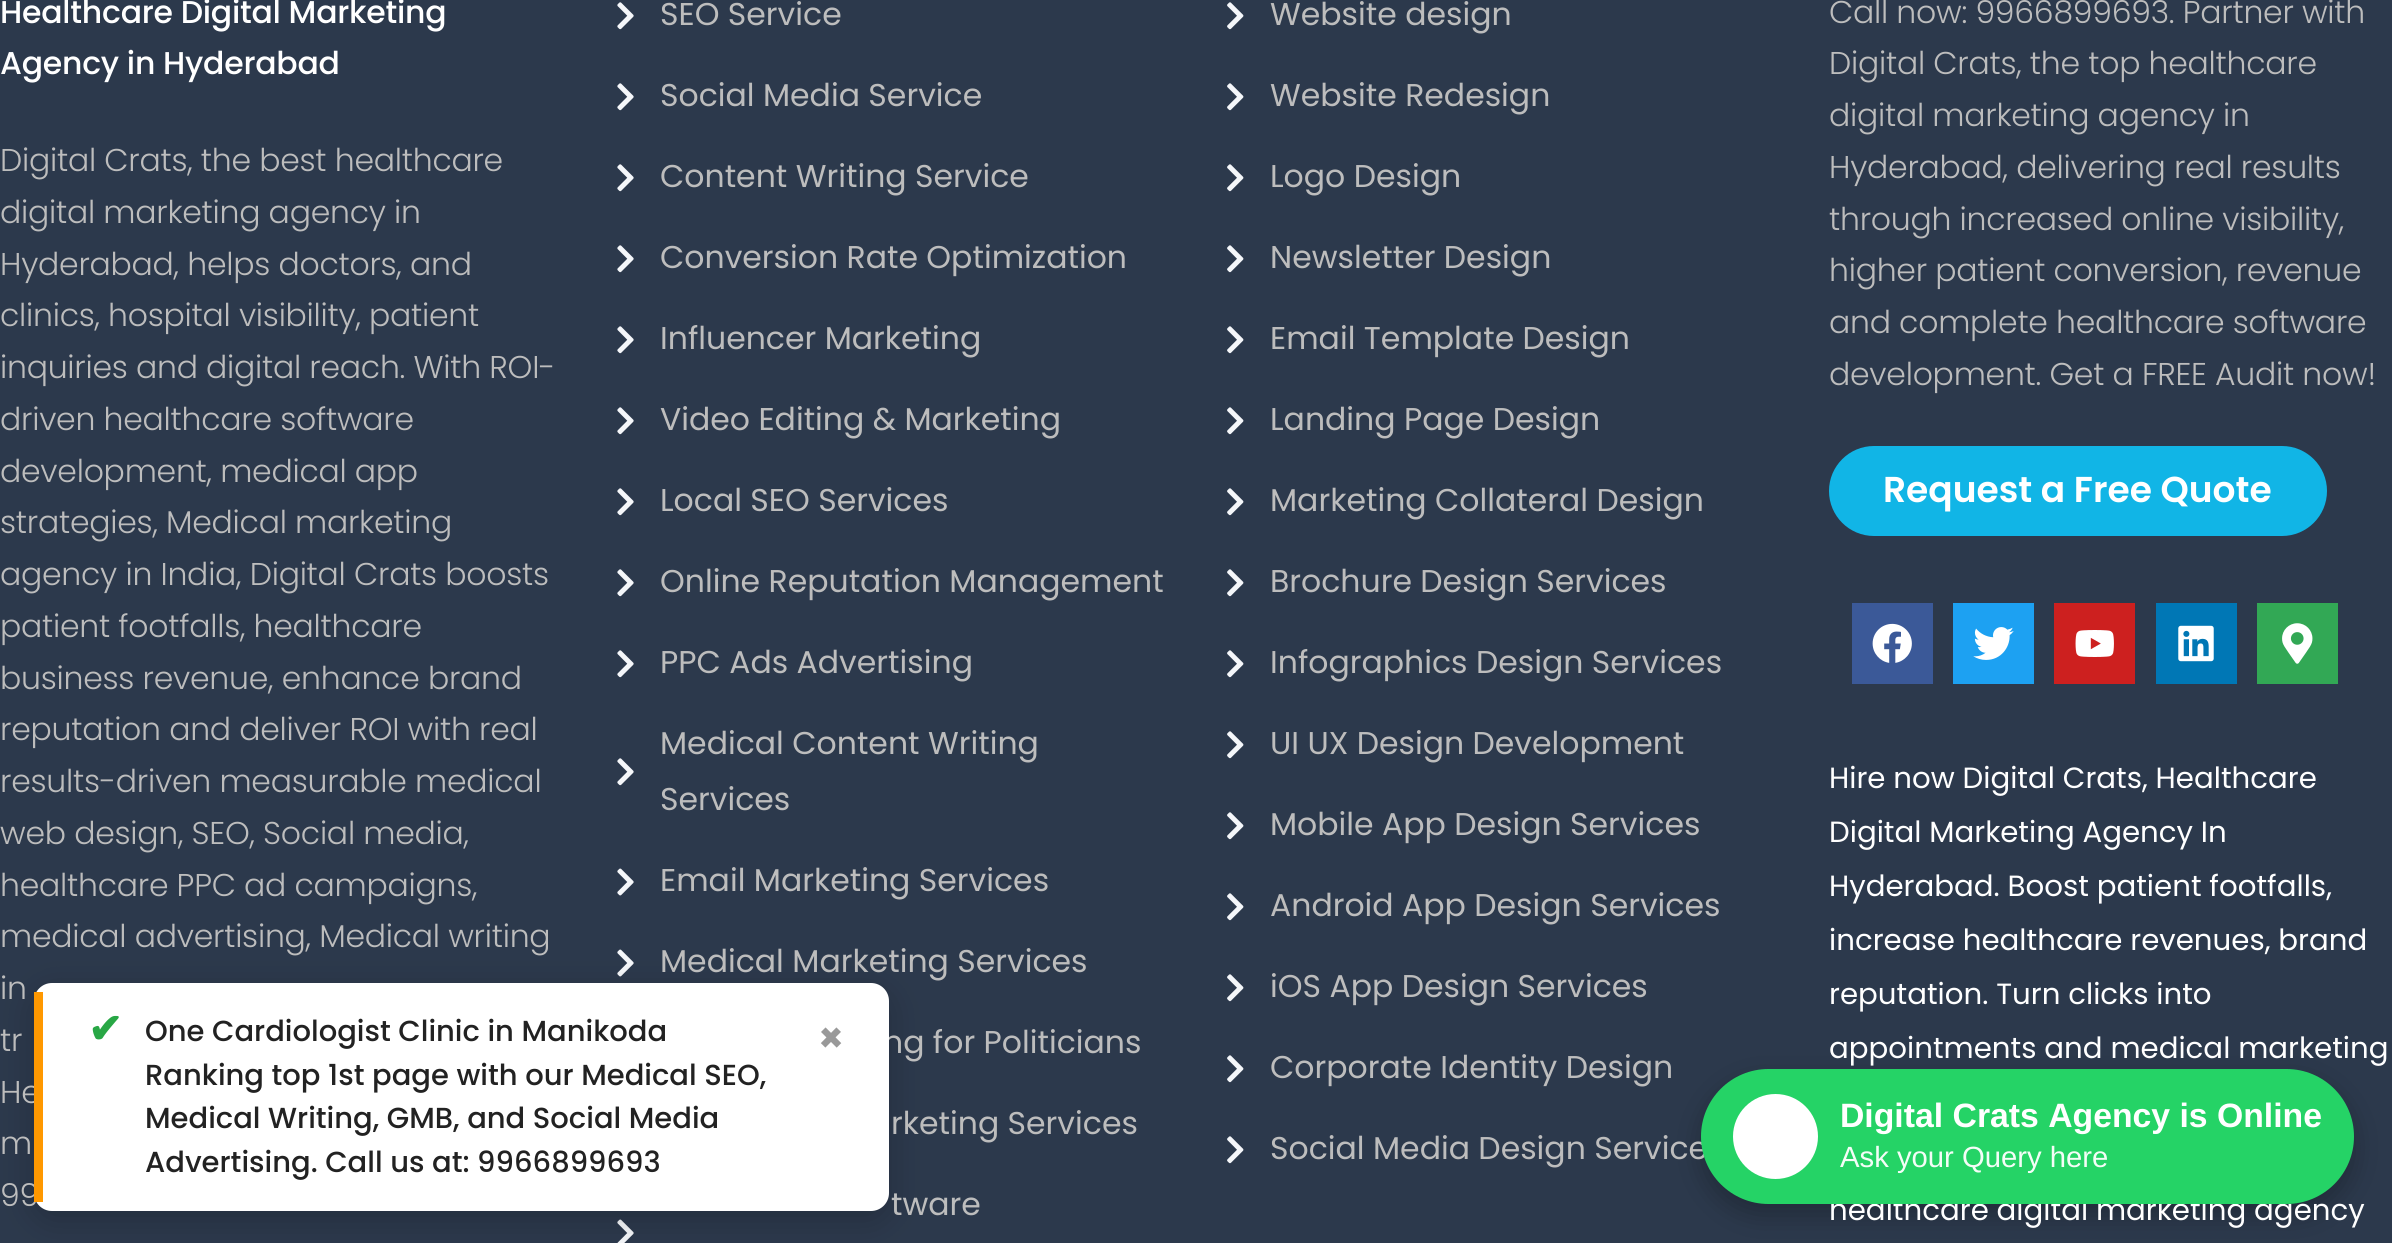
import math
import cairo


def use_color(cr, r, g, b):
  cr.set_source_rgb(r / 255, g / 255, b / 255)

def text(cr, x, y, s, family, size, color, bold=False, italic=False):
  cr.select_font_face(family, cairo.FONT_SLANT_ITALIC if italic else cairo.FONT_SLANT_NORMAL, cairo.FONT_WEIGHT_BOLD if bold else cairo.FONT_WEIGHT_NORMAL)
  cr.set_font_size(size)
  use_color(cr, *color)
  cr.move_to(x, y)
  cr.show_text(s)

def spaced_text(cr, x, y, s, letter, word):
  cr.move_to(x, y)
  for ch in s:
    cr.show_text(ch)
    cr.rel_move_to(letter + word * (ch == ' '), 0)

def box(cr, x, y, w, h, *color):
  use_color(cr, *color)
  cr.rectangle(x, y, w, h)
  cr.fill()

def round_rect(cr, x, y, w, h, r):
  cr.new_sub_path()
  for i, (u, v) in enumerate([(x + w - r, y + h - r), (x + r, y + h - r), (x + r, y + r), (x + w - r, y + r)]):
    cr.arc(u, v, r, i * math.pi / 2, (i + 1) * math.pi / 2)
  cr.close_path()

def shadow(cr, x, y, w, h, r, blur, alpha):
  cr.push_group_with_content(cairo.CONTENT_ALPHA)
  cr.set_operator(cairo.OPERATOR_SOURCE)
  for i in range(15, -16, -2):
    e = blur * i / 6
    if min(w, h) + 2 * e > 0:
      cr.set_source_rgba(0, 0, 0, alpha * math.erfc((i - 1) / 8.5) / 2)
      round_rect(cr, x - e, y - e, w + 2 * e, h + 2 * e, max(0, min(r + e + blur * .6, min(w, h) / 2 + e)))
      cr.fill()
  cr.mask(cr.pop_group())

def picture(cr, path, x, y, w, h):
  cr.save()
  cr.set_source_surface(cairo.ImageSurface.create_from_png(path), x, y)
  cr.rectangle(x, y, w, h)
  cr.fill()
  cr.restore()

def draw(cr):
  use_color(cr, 44, 57, 76)
  cr.paint()
  picture(cr, "img_01.png", 617, 2, 17, 28)
  picture(cr, "img_01.png", 617, 83, 17, 28)
  picture(cr, "img_01.png", 617, 164, 17, 28)
  picture(cr, "img_01.png", 617, 245, 17, 28)
  picture(cr, "img_01.png", 617, 326, 17, 28)
  picture(cr, "img_01.png", 617, 407, 17, 28)
  picture(cr, "img_01.png", 617, 488, 17, 28)
  picture(cr, "img_01.png", 617, 569, 17, 28)
  picture(cr, "img_01.png", 617, 650, 17, 28)
  picture(cr, "img_01.png", 617, 758, 17, 28)
  picture(cr, "img_02.png", 617, 868, 17, 28)
  picture(cr, "img_02.png", 617, 949, 17, 28)
  picture(cr, "img_03.png", 617, 1219, 17, 24)
  picture(cr, "img_04.png", 1227, 2, 17, 28)
  picture(cr, "img_04.png", 1227, 83, 17, 28)
  picture(cr, "img_04.png", 1227, 164, 17, 28)
  picture(cr, "img_04.png", 1227, 245, 17, 28)
  picture(cr, "img_04.png", 1227, 326, 17, 28)
  picture(cr, "img_04.png", 1227, 407, 17, 28)
  picture(cr, "img_04.png", 1227, 488, 17, 28)
  picture(cr, "img_04.png", 1227, 569, 17, 28)
  picture(cr, "img_04.png", 1227, 650, 17, 28)
  picture(cr, "img_04.png", 1227, 731, 17, 28)
  picture(cr, "img_04.png", 1227, 812, 17, 28)
  picture(cr, "img_04.png", 1227, 893, 17, 28)
  picture(cr, "img_04.png", 1227, 974, 17, 28)
  picture(cr, "img_04.png", 1227, 1055, 17, 28)
  picture(cr, "img_04.png", 1227, 1136, 17, 28)
  use_color(cr, 17, 181, 230)
  round_rect(cr, 1829, 446, 498, 90, 45)
  cr.fill()
  box(cr, 1852, 603, 81, 81, 59, 89, 152)
  picture(cr, "img_05.png", 1872, 623, 40, 40)
  box(cr, 1953, 603, 81, 81, 29, 161, 242)
  picture(cr, "img_06.png", 1973, 627, 41, 33)
  box(cr, 2054, 603, 81, 81, 205, 32, 31)
  picture(cr, "img_07.png", 2075, 630, 39, 27)
  box(cr, 2156, 603, 81, 81, 0, 119, 181)
  picture(cr, "img_08.png", 2178, 625, 36, 37)
  box(cr, 2257, 603, 81, 81, 50, 168, 85)
  picture(cr, "img_09.png", 2282, 623, 31, 41)
  use_color(cr, 0, 0, 0)
  shadow(cr, 34, 992, 855, 228, 18, 17, 0.2)
  shadow(cr, 1701, 1080, 653, 135, 67.5, 13.5, 0.25)
  cr.select_font_face("Poppins Medium")
  cr.set_font_size(31.5)
  use_color(cr, 255, 255, 255)
  spaced_text(cr, 0, 23, "Healthcare Digital Marketing", -0.25, 0)
  spaced_text(cr, 0, 74, "Agency in Hyderabad", -0.25, 0)
  cr.select_font_face("Poppins Light")
  use_color(cr, 189, 189, 189)
  spaced_text(cr, 0, 171, "Digital Crats, the best healthcare", -0.25, 0)
  spaced_text(cr, 0, 223, "digital marketing agency in", -0.25, 0)
  spaced_text(cr, 0, 275, "Hyderabad, helps doctors, and", -0.25, 0)
  spaced_text(cr, 0, 326, "clinics, hospital visibility, patient", -0.25, 0)
  spaced_text(cr, 0, 378, "inquiries and digital reach. With ROI-", -0.25, 0)
  spaced_text(cr, 0, 430, "driven healthcare software", -0.25, 0)
  spaced_text(cr, 0, 482, "development, medical app", -0.25, 0)
  spaced_text(cr, 0, 533, "strategies, Medical marketing", -0.25, 0)
  spaced_text(cr, 0, 585, "agency in India, Digital Crats boosts", -0.25, 0)
  spaced_text(cr, 0, 637, "patient footfalls, healthcare", -0.25, 0)
  spaced_text(cr, 0, 689, "business revenue, enhance brand", -0.25, 0)
  spaced_text(cr, 0, 740, "reputation and deliver ROI with real", -0.25, 0)
  spaced_text(cr, 0, 792, "results-driven measurable medical", -0.25, 0)
  spaced_text(cr, 0, 844, "web design, SEO, Social media,", -0.25, 0)
  spaced_text(cr, 0, 896, "healthcare PPC ad campaigns,", -0.25, 0)
  spaced_text(cr, 0, 947, "medical advertising, Medical writing", -0.25, 0)
  spaced_text(cr, 0, 999, "in", -0.25, 0)
  spaced_text(cr, 0, 1051, "tr", -0.25, 0)
  spaced_text(cr, 0, 1103, "He", -0.25, 0)
  spaced_text(cr, 0, 1154, "m", -0.25, 0)
  spaced_text(cr, 0, 1206, "99", -0.25, 0)
  text(cr, 660, 25, "SEO Service", "Poppins", 31.5, (189, 189, 189))
  text(cr, 660, 106, "Social Media Service", "Poppins", 31.5, (189, 189, 189))
  text(cr, 660, 187, "Content Writing Service", "Poppins", 31.5, (189, 189, 189))
  text(cr, 660, 268, "Conversion Rate Optimization", "Poppins", 31.5, (189, 189, 189))
  text(cr, 660, 349, "Influencer Marketing", "Poppins", 31.5, (189, 189, 189))
  text(cr, 660, 430, "Video Editing & Marketing", "Poppins", 31.5, (189, 189, 189))
  text(cr, 660, 511, "Local SEO Services", "Poppins", 31.5, (189, 189, 189))
  text(cr, 660, 592, "Online Reputation Management", "Poppins", 31.5, (189, 189, 189))
  text(cr, 660, 673, "PPC Ads Advertising", "Poppins", 31.5, (189, 189, 189))
  text(cr, 660, 754, "Medical Content Writing", "Poppins", 31.5, (189, 189, 189))
  text(cr, 660, 810, "Services", "Poppins", 31.5, (189, 189, 189))
  text(cr, 660, 891, "Email Marketing Services", "Poppins", 31.5, (189, 189, 189))
  text(cr, 660, 972, "Medical Marketing Services", "Poppins", 31.5, (189, 189, 189))
  text(cr, 883, 1053, "ng for Politicians", "Poppins", 31.5, (189, 189, 189))
  text(cr, 891, 1134, "rketing Services", "Poppins", 31.5, (189, 189, 189))
  text(cr, 891, 1215, "tware", "Poppins", 31.5, (189, 189, 189))
  text(cr, 1270, 25, "Website design", "Poppins", 31.5, (189, 189, 189))
  text(cr, 1270, 106, "Website Redesign", "Poppins", 31.5, (189, 189, 189))
  text(cr, 1270, 187, "Logo Design", "Poppins", 31.5, (189, 189, 189))
  text(cr, 1270, 268, "Newsletter Design", "Poppins", 31.5, (189, 189, 189))
  text(cr, 1270, 349, "Email Template Design", "Poppins", 31.5, (189, 189, 189))
  text(cr, 1270, 430, "Landing Page Design", "Poppins", 31.5, (189, 189, 189))
  text(cr, 1270, 511, "Marketing Collateral Design", "Poppins", 31.5, (189, 189, 189))
  text(cr, 1270, 592, "Brochure Design Services", "Poppins", 31.5, (189, 189, 189))
  text(cr, 1270, 673, "Infographics Design Services", "Poppins", 31.5, (189, 189, 189))
  text(cr, 1270, 754, "UI UX Design Development", "Poppins", 31.5, (189, 189, 189))
  text(cr, 1270, 835, "Mobile App Design Services", "Poppins", 31.5, (189, 189, 189))
  text(cr, 1270, 916, "Android App Design Services", "Poppins", 31.5, (189, 189, 189))
  text(cr, 1270, 997, "iOS App Design Services", "Poppins", 31.5, (189, 189, 189))
  text(cr, 1270, 1078, "Corporate Identity Design", "Poppins", 31.5, (189, 189, 189))
  text(cr, 1270, 1159, "Social Media Design Service", "Poppins", 31.5, (189, 189, 189))
  cr.select_font_face("Poppins Light")
  spaced_text(cr, 1829, 23, "Call now: 9966899693. Partner with", -0.25, 0)
  spaced_text(cr, 1829, 74, "Digital Crats, the top healthcare", -0.25, 0)
  spaced_text(cr, 1829, 126, "digital marketing agency in", -0.25, 0)
  spaced_text(cr, 1829, 178, "Hyderabad, delivering real results", -0.25, 0)
  spaced_text(cr, 1829, 230, "through increased online visibility,", -0.25, 0)
  spaced_text(cr, 1829, 281, "higher patient conversion, revenue", -0.25, 0)
  spaced_text(cr, 1829, 333, "and complete healthcare software", -0.25, 0)
  spaced_text(cr, 1829, 385, "development. Get a FREE Audit now!", -0.25, 0)
  text(cr, 1883, 502, "Request a Free Quote", "Poppins SemiBold", 36, (255, 255, 255))
  text(cr, 1829, 788, "Hire now Digital Crats, Healthcare", "Poppins", 29.25, (255, 255, 255))
  text(cr, 1829, 842, "Digital Marketing Agency In", "Poppins", 29.25, (255, 255, 255))
  text(cr, 1829, 896, "Hyderabad. Boost patient footfalls,", "Poppins", 29.25, (255, 255, 255))
  text(cr, 1829, 950, "increase healthcare revenues, brand", "Poppins", 29.25, (255, 255, 255))
  text(cr, 1829, 1004, "reputation. Turn clicks into", "Poppins", 29.25, (255, 255, 255))
  text(cr, 1829, 1058, "appointments and medical marketing", "Poppins", 29.25, (255, 255, 255))
  text(cr, 1829, 1220, "healthcare digital marketing agency", "Poppins", 29.25, (255, 255, 255))
  round_rect(cr, 34, 983, 855, 228, 18)
  cr.fill()
  box(cr, 34, 992, 9, 210, 255, 152, 0)
  text(cr, 88, 1043, "✔", "DejaVu Sans", 41, (40, 167, 69), bold=True)
  text(cr, 145, 1041, "One Cardiologist Clinic in Manikoda", "Poppins Medium", 29, (34, 34, 34))
  text(cr, 145, 1085, "Ranking top 1st page with our Medical SEO,", "Poppins Medium", 29, (34, 34, 34))
  text(cr, 145, 1128, "Medical Writing, GMB, and Social Media", "Poppins Medium", 29, (34, 34, 34))
  text(cr, 145, 1172, "Advertising. Call us at: 9966899693", "Poppins Medium", 29, (34, 34, 34))
  text(cr, 818, 1052, "×", "Poppins", 41, (153, 153, 153), bold=True)
  use_color(cr, 37, 211, 102)
  round_rect(cr, 1701, 1069, 653, 135, 67.5)
  cr.fill()
  use_color(cr, 255, 255, 255)
  cr.arc(1775.5, 1136.5, 42.5, 0, 2 * math.pi)
  cr.fill()
  text(cr, 1840, 1127, "Digital Crats Agency is Online", "Liberation Sans", 33.75, (255, 255, 255), bold=True)
  text(cr, 1840, 1167, "Ask your Query here", "Liberation Sans", 29.25, (244, 253, 247))


surface = cairo.ImageSurface(cairo.FORMAT_RGB24, 2392, 1243)
cr = cairo.Context(surface)
options = cairo.FontOptions()
options.set_hint_metrics(cairo.HINT_METRICS_OFF)
options.set_hint_style(cairo.HINT_STYLE_NONE)
cr.set_font_options(options)
cr.set_miter_limit(4)
draw(cr)
surface.write_to_png("out.png")
